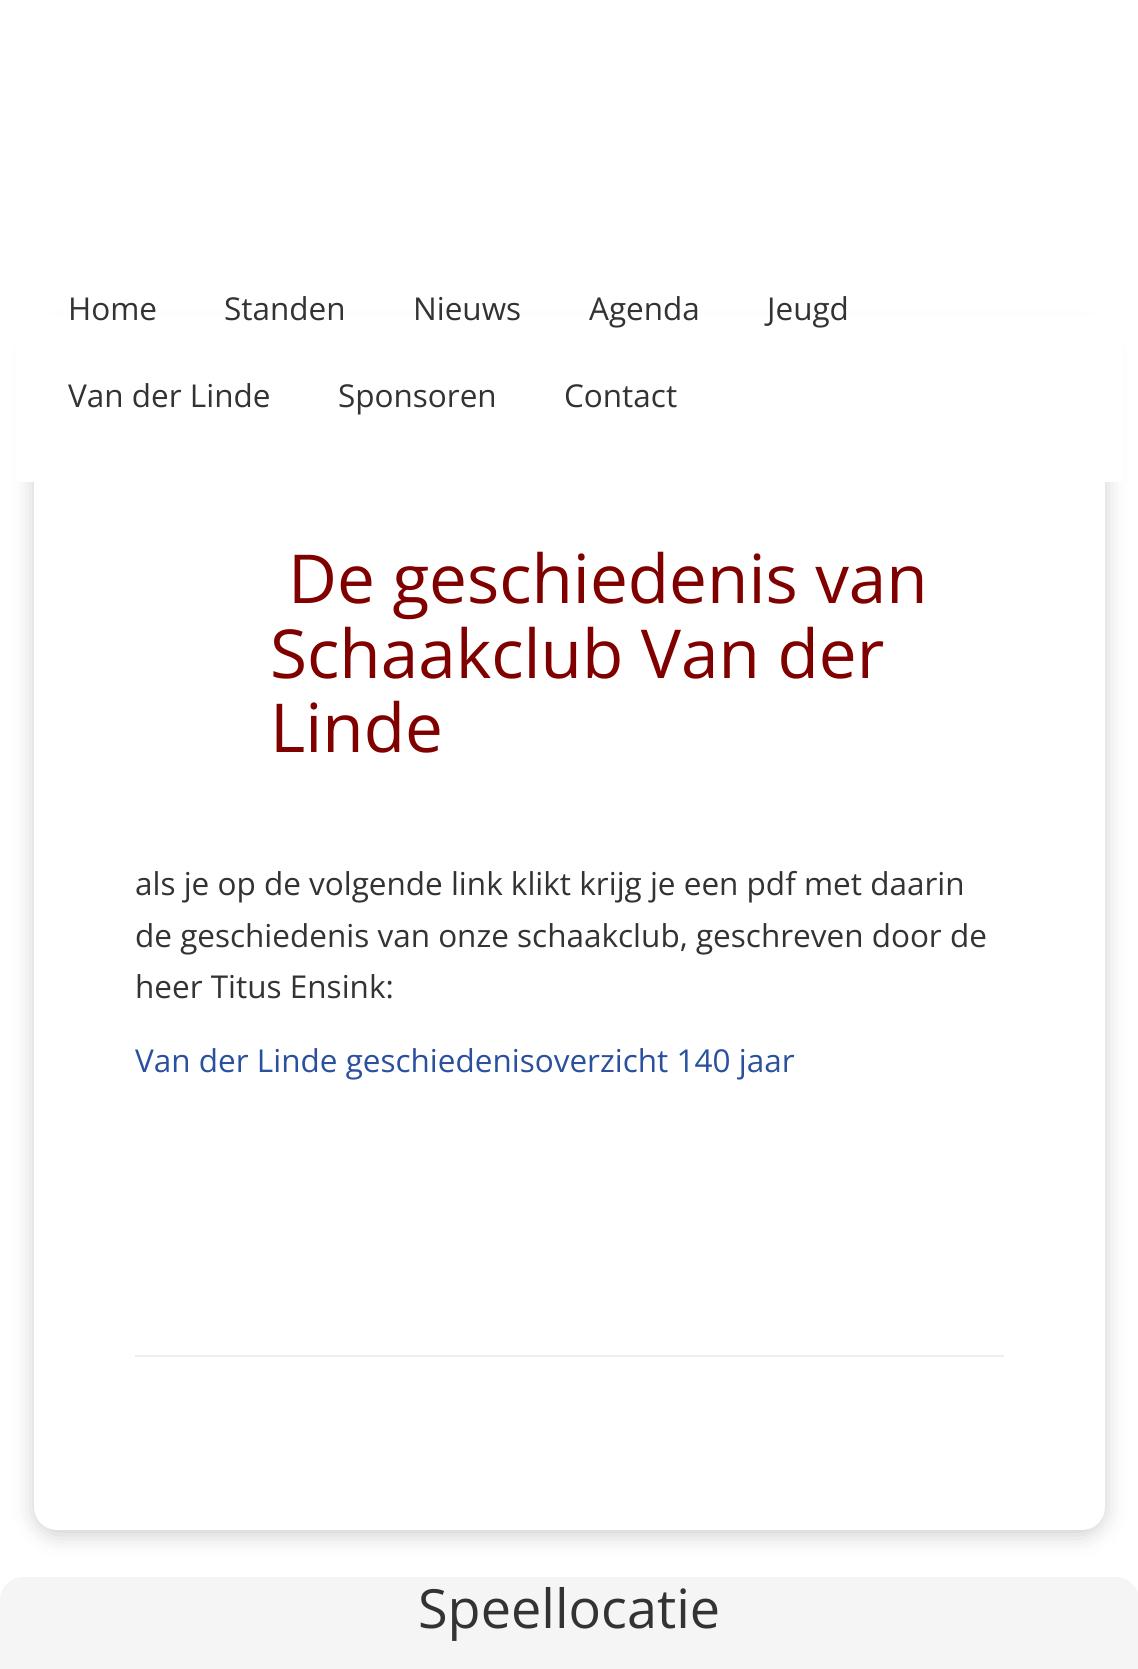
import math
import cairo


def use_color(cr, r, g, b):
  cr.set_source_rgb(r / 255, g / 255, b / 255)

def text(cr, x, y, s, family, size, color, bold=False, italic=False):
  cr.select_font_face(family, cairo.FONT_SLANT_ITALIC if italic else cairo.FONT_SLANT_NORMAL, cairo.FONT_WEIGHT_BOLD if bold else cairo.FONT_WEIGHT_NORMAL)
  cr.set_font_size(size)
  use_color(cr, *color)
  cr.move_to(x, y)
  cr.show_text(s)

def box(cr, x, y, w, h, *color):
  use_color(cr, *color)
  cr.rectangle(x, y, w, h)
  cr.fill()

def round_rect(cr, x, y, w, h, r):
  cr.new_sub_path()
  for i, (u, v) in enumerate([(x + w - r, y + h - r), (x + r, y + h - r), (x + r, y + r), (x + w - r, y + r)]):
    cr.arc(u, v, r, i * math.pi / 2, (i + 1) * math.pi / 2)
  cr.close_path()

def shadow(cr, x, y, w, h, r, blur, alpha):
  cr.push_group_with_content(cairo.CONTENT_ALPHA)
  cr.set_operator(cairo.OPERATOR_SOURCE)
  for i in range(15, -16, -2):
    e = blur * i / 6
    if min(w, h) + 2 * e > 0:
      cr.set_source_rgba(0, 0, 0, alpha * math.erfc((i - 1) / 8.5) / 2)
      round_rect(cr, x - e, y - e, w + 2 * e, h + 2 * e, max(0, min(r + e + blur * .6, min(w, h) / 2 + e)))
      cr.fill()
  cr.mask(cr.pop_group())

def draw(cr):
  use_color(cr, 255, 255, 255)
  cr.paint()
  use_color(cr, 0, 0, 0)
  shadow(cr, 34, 333, 1071, 1202, 23, 11, 0.2)
  use_color(cr, 255, 255, 255)
  round_rect(cr, 34, 329, 1071, 1201, 23)
  cr.fill()
  box(cr, 16, 315, 1107, 167, 255, 255, 255)
  box(cr, 135, 1355, 869, 2, 238, 238, 238)
  use_color(cr, 245, 245, 245)
  round_rect(cr, 0, 1577, 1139, 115, 23)
  cr.fill()
  text(cr, 68, 320, "Home", "Open Sans", 31.5, (51, 51, 51))
  text(cr, 224, 320, "Standen", "Open Sans", 31.5, (51, 51, 51))
  text(cr, 413, 320, "Nieuws", "Open Sans", 31.5, (51, 51, 51))
  text(cr, 589, 320, "Agenda", "Open Sans", 31.5, (51, 51, 51))
  text(cr, 767, 320, "Jeugd", "Open Sans", 31.5, (51, 51, 51))
  text(cr, 68, 407, "Van der Linde", "Open Sans", 31.5, (51, 51, 51))
  text(cr, 338, 407, "Sponsoren", "Open Sans", 31.5, (51, 51, 51))
  text(cr, 564, 407, "Contact", "Open Sans", 31.5, (51, 51, 51))
  text(cr, 288, 603, "De geschiedenis van", "Open Sans", 67.5, (128, 0, 0))
  text(cr, 270, 678, "Schaakclub Van der", "Open Sans", 67.5, (128, 0, 0))
  text(cr, 270, 752, "Linde", "Open Sans", 67.5, (128, 0, 0))
  text(cr, 135, 895, "als je op de volgende link klikt krijg je een pdf met daarin", "Open Sans", 31.5, (51, 51, 51))
  text(cr, 135, 947, "de geschiedenis van onze schaakclub, geschreven door de", "Open Sans", 31.5, (51, 51, 51))
  text(cr, 135, 998, "heer Titus Ensink:", "Open Sans", 31.5, (51, 51, 51))
  text(cr, 135, 1072, "Van der Linde geschiedenisoverzicht 140 jaar", "Open Sans", 31.5, (42, 80, 158))
  text(cr, 418, 1628, "Speellocatie", "Open Sans", 54, (51, 51, 51))


surface = cairo.ImageSurface(cairo.FORMAT_RGB24, 1138, 1669)
cr = cairo.Context(surface)
options = cairo.FontOptions()
options.set_hint_metrics(cairo.HINT_METRICS_OFF)
options.set_hint_style(cairo.HINT_STYLE_NONE)
cr.set_font_options(options)
cr.set_miter_limit(4)
draw(cr)
surface.write_to_png("out.png")
